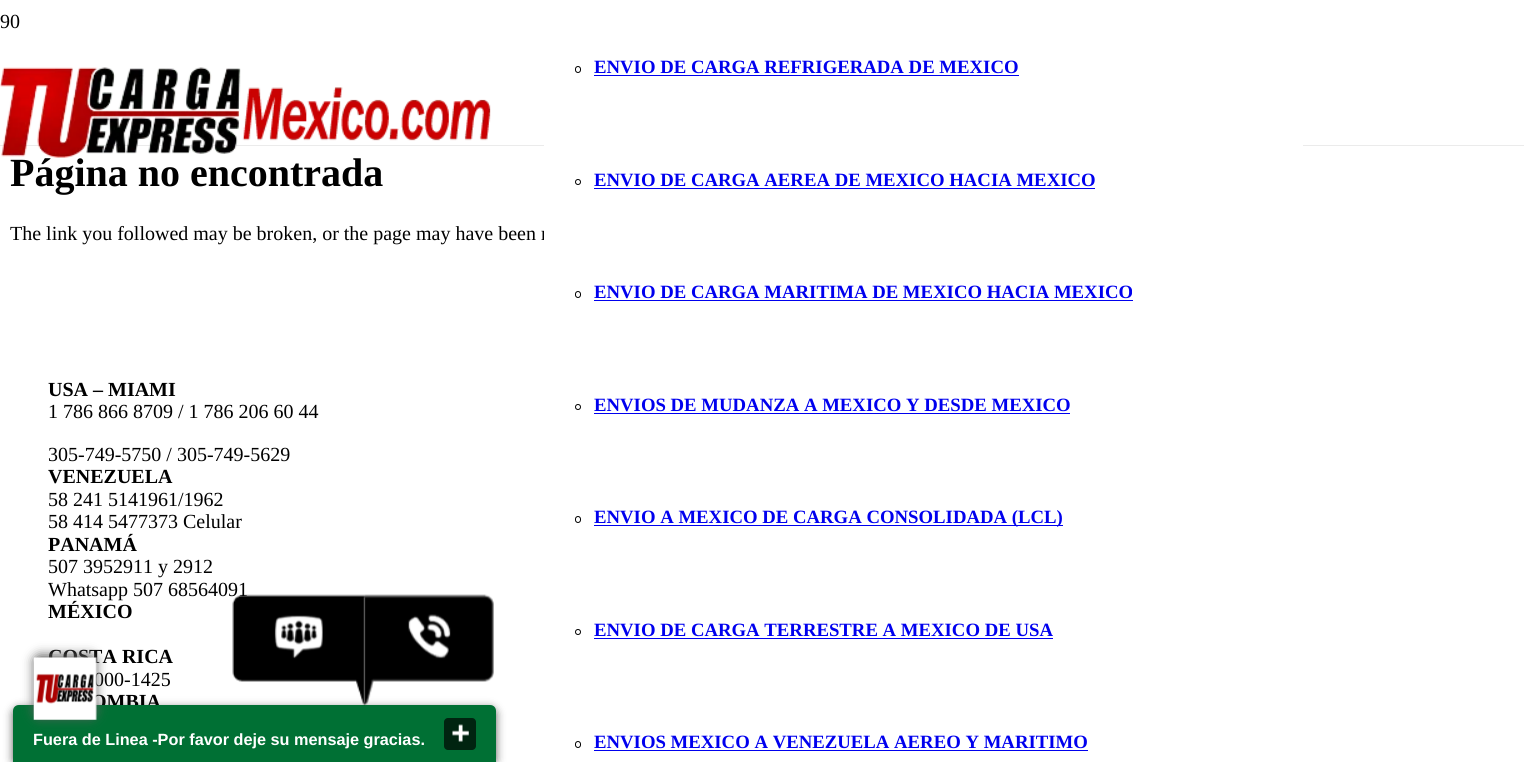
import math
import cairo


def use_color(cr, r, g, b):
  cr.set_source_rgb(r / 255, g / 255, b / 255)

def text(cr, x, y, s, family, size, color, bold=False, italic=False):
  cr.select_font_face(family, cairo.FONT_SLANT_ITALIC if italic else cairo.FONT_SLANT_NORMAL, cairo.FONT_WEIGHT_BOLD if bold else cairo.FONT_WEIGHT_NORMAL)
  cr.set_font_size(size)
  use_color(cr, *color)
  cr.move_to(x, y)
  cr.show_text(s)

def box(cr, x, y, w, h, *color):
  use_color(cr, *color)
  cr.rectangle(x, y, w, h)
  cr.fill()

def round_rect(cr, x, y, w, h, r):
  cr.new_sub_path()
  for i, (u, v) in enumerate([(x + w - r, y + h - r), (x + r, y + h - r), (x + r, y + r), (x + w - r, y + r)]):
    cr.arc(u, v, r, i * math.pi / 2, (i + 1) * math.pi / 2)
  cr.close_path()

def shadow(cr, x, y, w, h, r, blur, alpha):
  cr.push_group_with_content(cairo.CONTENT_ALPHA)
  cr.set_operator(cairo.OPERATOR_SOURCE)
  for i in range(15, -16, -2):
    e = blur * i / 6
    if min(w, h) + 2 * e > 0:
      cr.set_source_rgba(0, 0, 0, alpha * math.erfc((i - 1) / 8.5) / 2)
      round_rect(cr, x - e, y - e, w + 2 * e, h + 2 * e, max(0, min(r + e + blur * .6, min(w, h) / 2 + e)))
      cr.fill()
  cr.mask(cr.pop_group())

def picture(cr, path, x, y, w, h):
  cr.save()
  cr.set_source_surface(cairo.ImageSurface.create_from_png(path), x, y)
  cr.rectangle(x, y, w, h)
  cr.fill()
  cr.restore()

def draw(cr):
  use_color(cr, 255, 255, 255)
  cr.paint()
  box(cr, 0, 145, 1524, 1, 235, 235, 235)
  picture(cr, "img_01.png", 0, 67, 491, 91)
  round_rect(cr, 575.5, 66.5, 5, 6, 2.5)
  use_color(cr, 0, 0, 0)
  cr.set_line_width(1)
  cr.stroke()
  box(cr, 594, 75, 425, 1, 0, 0, 238)
  round_rect(cr, 575.5, 291.5, 5, 6, 2.5)
  use_color(cr, 0, 0, 0)
  cr.stroke()
  box(cr, 594, 300, 539, 1, 0, 0, 238)
  cr.arc(578, 407, 2.5, 0, 2 * math.pi)
  use_color(cr, 0, 0, 0)
  cr.stroke()
  box(cr, 594, 413, 476, 1, 0, 0, 238)
  round_rect(cr, 575.5, 516.5, 5, 6, 2.5)
  use_color(cr, 0, 0, 0)
  cr.stroke()
  box(cr, 594, 525, 469, 1, 0, 0, 238)
  cr.arc(578, 632, 2.5, 0, 2 * math.pi)
  use_color(cr, 0, 0, 0)
  cr.stroke()
  box(cr, 594, 638, 459, 1, 0, 0, 238)
  round_rect(cr, 575.5, 741.5, 5, 6, 2.5)
  use_color(cr, 0, 0, 0)
  cr.stroke()
  box(cr, 594, 750, 494, 1, 0, 0, 238)
  use_color(cr, 95, 95, 94)
  shadow(cr, 13, 708, 483, 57, 6, 4.5, 1)
  text(cr, 0, 28, "90", "Liberation Serif", 20, (0, 0, 0))
  text(cr, 594, 73, "ENVIO DE CARGA REFRIGERADA DE MEXICO", "Liberation Serif", 18.75, (0, 0, 238), bold=True)
  text(cr, 594, 298, "ENVIO DE CARGA MARITIMA DE MEXICO HACIA MEXICO", "Liberation Serif", 18.75, (0, 0, 238), bold=True)
  text(cr, 594, 411, "ENVIOS DE MUDANZA A MEXICO Y DESDE MEXICO", "Liberation Serif", 18.75, (0, 0, 238), bold=True)
  text(cr, 594, 523, "ENVIO A MEXICO DE CARGA CONSOLIDADA (LCL)", "Liberation Serif", 18.75, (0, 0, 238), bold=True)
  text(cr, 594, 636, "ENVIO DE CARGA TERRESTRE A MEXICO DE USA", "Liberation Serif", 18.75, (0, 0, 238), bold=True)
  text(cr, 594, 748, "ENVIOS MEXICO A VENEZUELA AEREO Y MARITIMO", "Liberation Serif", 18.75, (0, 0, 238), bold=True)
  text(cr, 10, 186, "Página no encontrada", "Liberation Serif", 40, (0, 0, 0), bold=True)
  text(cr, 10, 240, "The link you followed may be broken, or the page may have been r", "Liberation Serif", 20, (0, 0, 0))
  box(cr, 544, 145, 759, 95, 255, 255, 255)
  text(cr, 594, 186, "ENVIO DE CARGA AEREA DE MEXICO HACIA MEXICO", "Liberation Serif", 18.75, (0, 0, 238), bold=True)
  box(cr, 594, 188, 501, 1, 0, 0, 238)
  cr.new_path()
  cr.arc(578, 182, 2.5, 0, 2 * math.pi)
  use_color(cr, 0, 0, 0)
  cr.stroke()
  text(cr, 48, 396, "USA – MIAMI", "Liberation Serif", 20, (0, 0, 0), bold=True)
  text(cr, 48, 418, "1 786 866 8709 / 1 786 206 60 44", "Liberation Serif", 20, (0, 0, 0))
  text(cr, 48, 461, "305-749-5750 / 305-749-5629", "Liberation Serif", 20, (0, 0, 0))
  text(cr, 48, 483, "VENEZUELA", "Liberation Serif", 20, (0, 0, 0), bold=True)
  text(cr, 48, 506, "58 241 5141961/1962", "Liberation Serif", 20, (0, 0, 0))
  text(cr, 48, 528, "58 414 5477373 Celular", "Liberation Serif", 20, (0, 0, 0))
  text(cr, 48, 551, "PANAMÁ", "Liberation Serif", 20, (0, 0, 0), bold=True)
  text(cr, 48, 573, "507 3952911 y 2912", "Liberation Serif", 20, (0, 0, 0))
  text(cr, 48, 596, "Whatsapp 507 68564091", "Liberation Serif", 20, (0, 0, 0))
  text(cr, 48, 618, "MÉXICO", "Liberation Serif", 20, (0, 0, 0), bold=True)
  text(cr, 48, 663, "COSTA RICA", "Liberation Serif", 20, (0, 0, 0), bold=True)
  text(cr, 94, 686, "000-1425", "Liberation Serif", 20, (0, 0, 0))
  text(cr, 91, 708, "OMBIA", "Liberation Serif", 20, (0, 0, 0), bold=True)
  use_color(cr, 0, 112, 52)
  cr.new_path()
  cr.move_to(19, 705)
  cr.line_to(490, 705)
  cr.curve_to(493.5, 705, 496, 707.5, 496, 711)
  cr.line_to(496, 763)
  cr.line_to(13, 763)
  cr.line_to(13, 711)
  cr.curve_to(13, 707.5, 15.5, 705, 19, 705)
  cr.close_path()
  cr.fill()
  picture(cr, "img_02.png", 232, 594, 262, 112)
  use_color(cr, 95, 95, 94)
  shadow(cr, 34, 655, 62, 63, 6, 5.5, 1)
  picture(cr, "img_03.png", 33, 657, 64, 63)
  use_color(cr, 0, 36, 16)
  round_rect(cr, 444, 718, 32, 32, 4)
  cr.fill()
  picture(cr, "img_04.png", 452, 724, 17, 18)
  text(cr, 33, 745, "Fuera de Linea -Por favor deje su mensaje gracias.", "Liberation Sans", 16.25, (255, 255, 255), bold=True)


surface = cairo.ImageSurface(cairo.FORMAT_RGB24, 1524, 762)
cr = cairo.Context(surface)
options = cairo.FontOptions()
options.set_hint_metrics(cairo.HINT_METRICS_OFF)
options.set_hint_style(cairo.HINT_STYLE_NONE)
cr.set_font_options(options)
cr.set_miter_limit(4)
draw(cr)
surface.write_to_png("out.png")
